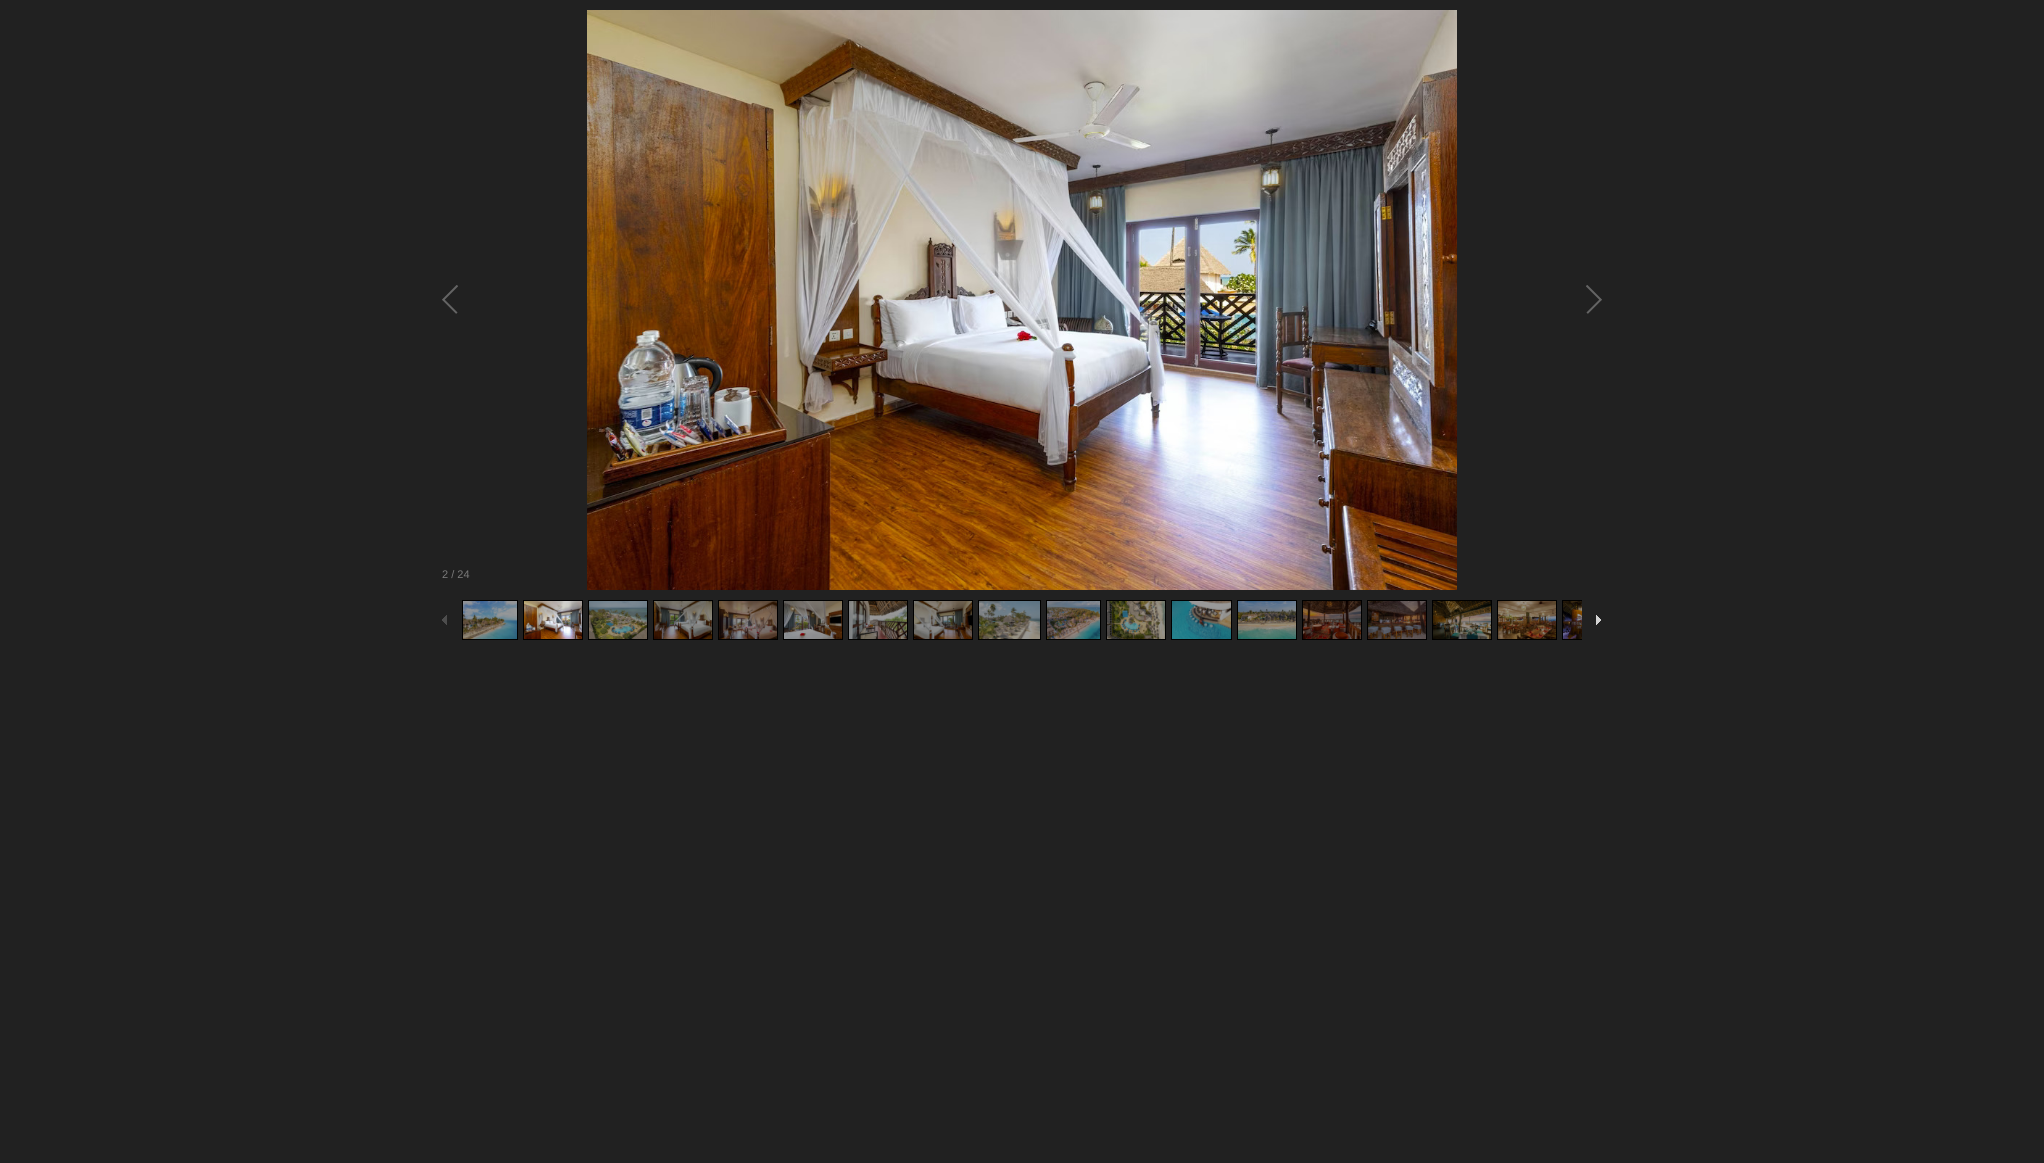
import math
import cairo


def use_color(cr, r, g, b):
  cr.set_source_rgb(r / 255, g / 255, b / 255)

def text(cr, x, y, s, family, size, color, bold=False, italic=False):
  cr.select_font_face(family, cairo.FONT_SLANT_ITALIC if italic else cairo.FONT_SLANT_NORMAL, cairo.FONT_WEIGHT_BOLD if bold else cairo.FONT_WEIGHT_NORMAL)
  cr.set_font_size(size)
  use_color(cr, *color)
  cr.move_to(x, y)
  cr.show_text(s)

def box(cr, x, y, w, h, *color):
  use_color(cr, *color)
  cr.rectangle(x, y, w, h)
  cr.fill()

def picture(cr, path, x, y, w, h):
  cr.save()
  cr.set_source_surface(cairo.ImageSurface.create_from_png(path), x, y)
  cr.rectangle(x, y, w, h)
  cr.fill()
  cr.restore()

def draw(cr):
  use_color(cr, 33, 33, 33)
  cr.paint()
  picture(cr, "img_01.png", 587, 10, 870, 580)
  picture(cr, "img_02.png", 442, 285, 16, 29)
  picture(cr, "img_03.png", 1586, 285, 16, 29)
  picture(cr, "img_04.png", 442, 615, 5, 10)
  box(cr, 462, 600, 56, 40, 0, 0, 0)
  picture(cr, "img_05.png", 463, 601, 54, 38)
  box(cr, 523, 600, 60, 40, 0, 0, 0)
  picture(cr, "img_06.png", 524, 601, 58, 38)
  box(cr, 588, 600, 60, 40, 0, 0, 0)
  picture(cr, "img_07.png", 589, 601, 58, 38)
  box(cr, 653, 600, 60, 40, 0, 0, 0)
  picture(cr, "img_08.png", 654, 601, 58, 38)
  box(cr, 718, 600, 60, 40, 0, 0, 0)
  picture(cr, "img_09.png", 719, 601, 58, 38)
  box(cr, 783, 600, 60, 40, 0, 0, 0)
  picture(cr, "img_10.png", 784, 601, 58, 38)
  box(cr, 848, 600, 60, 40, 0, 0, 0)
  picture(cr, "img_11.png", 849, 601, 58, 38)
  box(cr, 913, 600, 60, 40, 0, 0, 0)
  picture(cr, "img_12.png", 914, 601, 58, 38)
  box(cr, 978, 600, 63, 40, 0, 0, 0)
  picture(cr, "img_13.png", 979, 601, 61, 38)
  box(cr, 1046, 600, 55, 40, 0, 0, 0)
  picture(cr, "img_14.png", 1047, 601, 53, 38)
  box(cr, 1106, 600, 60, 40, 0, 0, 0)
  picture(cr, "img_15.png", 1107, 601, 58, 38)
  box(cr, 1171, 600, 61, 40, 0, 0, 0)
  picture(cr, "img_16.png", 1172, 601, 59, 38)
  box(cr, 1237, 600, 60, 40, 0, 0, 0)
  picture(cr, "img_17.png", 1238, 601, 58, 38)
  box(cr, 1302, 600, 60, 40, 0, 0, 0)
  picture(cr, "img_18.png", 1303, 601, 58, 38)
  box(cr, 1367, 600, 60, 40, 0, 0, 0)
  picture(cr, "img_19.png", 1368, 601, 58, 38)
  box(cr, 1432, 600, 60, 40, 0, 0, 0)
  picture(cr, "img_20.png", 1433, 601, 58, 38)
  box(cr, 1497, 600, 60, 40, 0, 0, 0)
  picture(cr, "img_21.png", 1498, 601, 58, 38)
  box(cr, 1562, 600, 20, 40, 0, 0, 0)
  picture(cr, "img_22.png", 1563, 601, 19, 38)
  picture(cr, "img_23.png", 1596, 615, 5, 10)
  text(cr, 442, 578, "2 / 24", "Liberation Sans", 11, (122, 122, 122))


surface = cairo.ImageSurface(cairo.FORMAT_RGB24, 2044, 1163)
cr = cairo.Context(surface)
options = cairo.FontOptions()
options.set_hint_metrics(cairo.HINT_METRICS_OFF)
options.set_hint_style(cairo.HINT_STYLE_NONE)
cr.set_font_options(options)
cr.set_miter_limit(4)
draw(cr)
surface.write_to_png("out.png")
